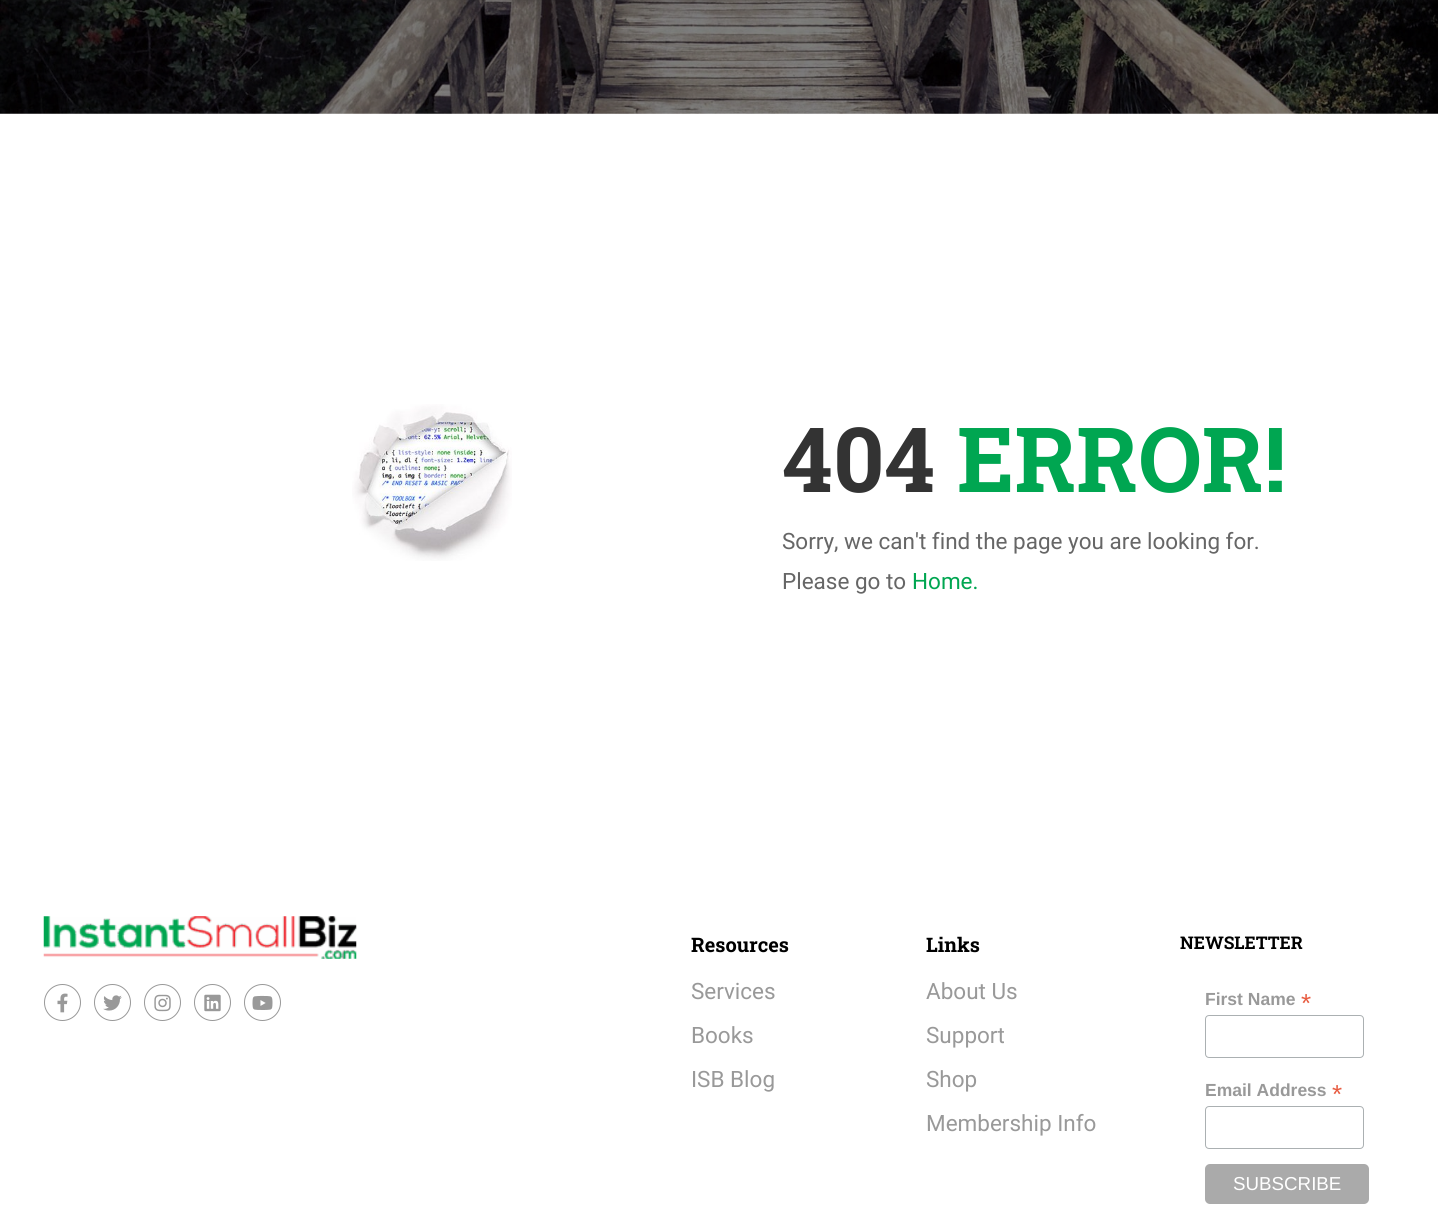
import math
import cairo


def use_color(cr, r, g, b):
  cr.set_source_rgb(r / 255, g / 255, b / 255)

def text(cr, x, y, s, family, size, color, bold=False, italic=False):
  cr.select_font_face(family, cairo.FONT_SLANT_ITALIC if italic else cairo.FONT_SLANT_NORMAL, cairo.FONT_WEIGHT_BOLD if bold else cairo.FONT_WEIGHT_NORMAL)
  cr.set_font_size(size)
  use_color(cr, *color)
  cr.move_to(x, y)
  cr.show_text(s)

def round_rect(cr, x, y, w, h, r):
  cr.new_sub_path()
  for i, (u, v) in enumerate([(x + w - r, y + h - r), (x + r, y + h - r), (x + r, y + r), (x + w - r, y + r)]):
    cr.arc(u, v, r, i * math.pi / 2, (i + 1) * math.pi / 2)
  cr.close_path()

def shadow(cr, x, y, w, h, r, blur, alpha):
  cr.push_group_with_content(cairo.CONTENT_ALPHA)
  cr.set_operator(cairo.OPERATOR_SOURCE)
  for i in range(15, -16, -2):
    e = blur * i / 6
    if min(w, h) + 2 * e > 0:
      cr.set_source_rgba(0, 0, 0, alpha * math.erfc((i - 1) / 8.5) / 2)
      round_rect(cr, x - e, y - e, w + 2 * e, h + 2 * e, max(0, min(r + e + blur * .6, min(w, h) / 2 + e)))
      cr.fill()
  cr.mask(cr.pop_group())

def picture(cr, path, x, y, w, h):
  cr.save()
  cr.set_source_surface(cairo.ImageSurface.create_from_png(path), x, y)
  cr.rectangle(x, y, w, h)
  cr.fill()
  cr.restore()

def draw(cr):
  use_color(cr, 255, 255, 255)
  cr.paint()
  picture(cr, "img_01.png", 0, 0, 1438, 114)
  use_color(cr, 42, 42, 42)
  shadow(cr, 3, -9, 1433, 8, 0, 3, 0.4)
  picture(cr, "img_02.png", 352, 404, 160, 157)
  picture(cr, "img_03.png", 43, 916, 314, 43)
  cr.arc(62.5, 1002.5, 18, 0, 2 * math.pi)
  use_color(cr, 153, 153, 153)
  cr.set_line_width(1)
  cr.stroke()
  picture(cr, "img_04.png", 57, 993, 11, 20)
  cr.arc(112.5, 1002.5, 18, 0, 2 * math.pi)
  cr.stroke()
  picture(cr, "img_05.png", 103, 995, 19, 16)
  cr.arc(162.5, 1002.5, 18, 0, 2 * math.pi)
  cr.stroke()
  picture(cr, "img_06.png", 154, 994, 17, 18)
  cr.arc(212.5, 1002.5, 18, 0, 2 * math.pi)
  cr.stroke()
  picture(cr, "img_07.png", 204, 994, 17, 18)
  cr.arc(262.5, 1002.5, 18, 0, 2 * math.pi)
  cr.stroke()
  picture(cr, "img_08.png", 252, 995, 21, 15)
  round_rect(cr, 1205.5, 1015.5, 158, 42, 3.5)
  use_color(cr, 171, 176, 178)
  cr.stroke()
  round_rect(cr, 1205.5, 1106.5, 158, 42, 3.5)
  cr.stroke()
  use_color(cr, 170, 170, 170)
  round_rect(cr, 1205, 1164, 164, 40, 5)
  cr.fill()
  text(cr, 782, 492, "404", "Roboto Slab", 90, (51, 51, 51), bold=True)
  text(cr, 957, 492, "ERROR!", "Roboto Slab", 90, (0, 166, 81), bold=True)
  text(cr, 782, 549, "Sorry, we can't find the page you are looking for.", "Roboto", 22.5, (102, 102, 102))
  text(cr, 782, 589, "Please go to", "Roboto", 22.5, (102, 102, 102))
  text(cr, 912, 589, "Home.", "Roboto", 22.5, (0, 166, 81))
  text(cr, 691, 952, "Resources", "Roboto Slab", 20, (0, 0, 0), bold=True)
  text(cr, 691, 999, "Services", "Roboto", 22.5, (153, 153, 153))
  text(cr, 691, 1043, "Books", "Roboto", 22.5, (153, 153, 153))
  text(cr, 691, 1087, "ISB Blog", "Roboto", 22.5, (153, 153, 153))
  text(cr, 926, 952, "Links", "Roboto Slab", 20, (0, 0, 0), bold=True)
  text(cr, 926, 999, "About Us", "Roboto", 22.5, (153, 153, 153))
  text(cr, 926, 1043, "Support", "Roboto", 22.5, (153, 153, 153))
  text(cr, 926, 1087, "Shop", "Roboto", 22.5, (153, 153, 153))
  text(cr, 926, 1131, "Membership Info", "Roboto", 22.5, (153, 153, 153))
  text(cr, 1180, 949, "NEWSLETTER", "Roboto Slab", 17.5, (0, 0, 0), bold=True)
  text(cr, 1205, 1005, "First Name", "Liberation Sans", 17.5, (153, 153, 153), bold=True)
  text(cr, 1301, 1012, "*", "Liberation Sans", 26, (232, 92, 65))
  text(cr, 1205, 1096, "Email Address", "Liberation Sans", 17.5, (153, 153, 153), bold=True)
  text(cr, 1332, 1103, "*", "Liberation Sans", 26, (232, 92, 65))
  text(cr, 1233, 1190, "SUBSCRIBE", "Liberation Sans", 18.75, (255, 255, 255))


surface = cairo.ImageSurface(cairo.FORMAT_RGB24, 1438, 1220)
cr = cairo.Context(surface)
options = cairo.FontOptions()
options.set_hint_metrics(cairo.HINT_METRICS_OFF)
options.set_hint_style(cairo.HINT_STYLE_NONE)
cr.set_font_options(options)
cr.set_miter_limit(4)
draw(cr)
surface.write_to_png("out.png")
